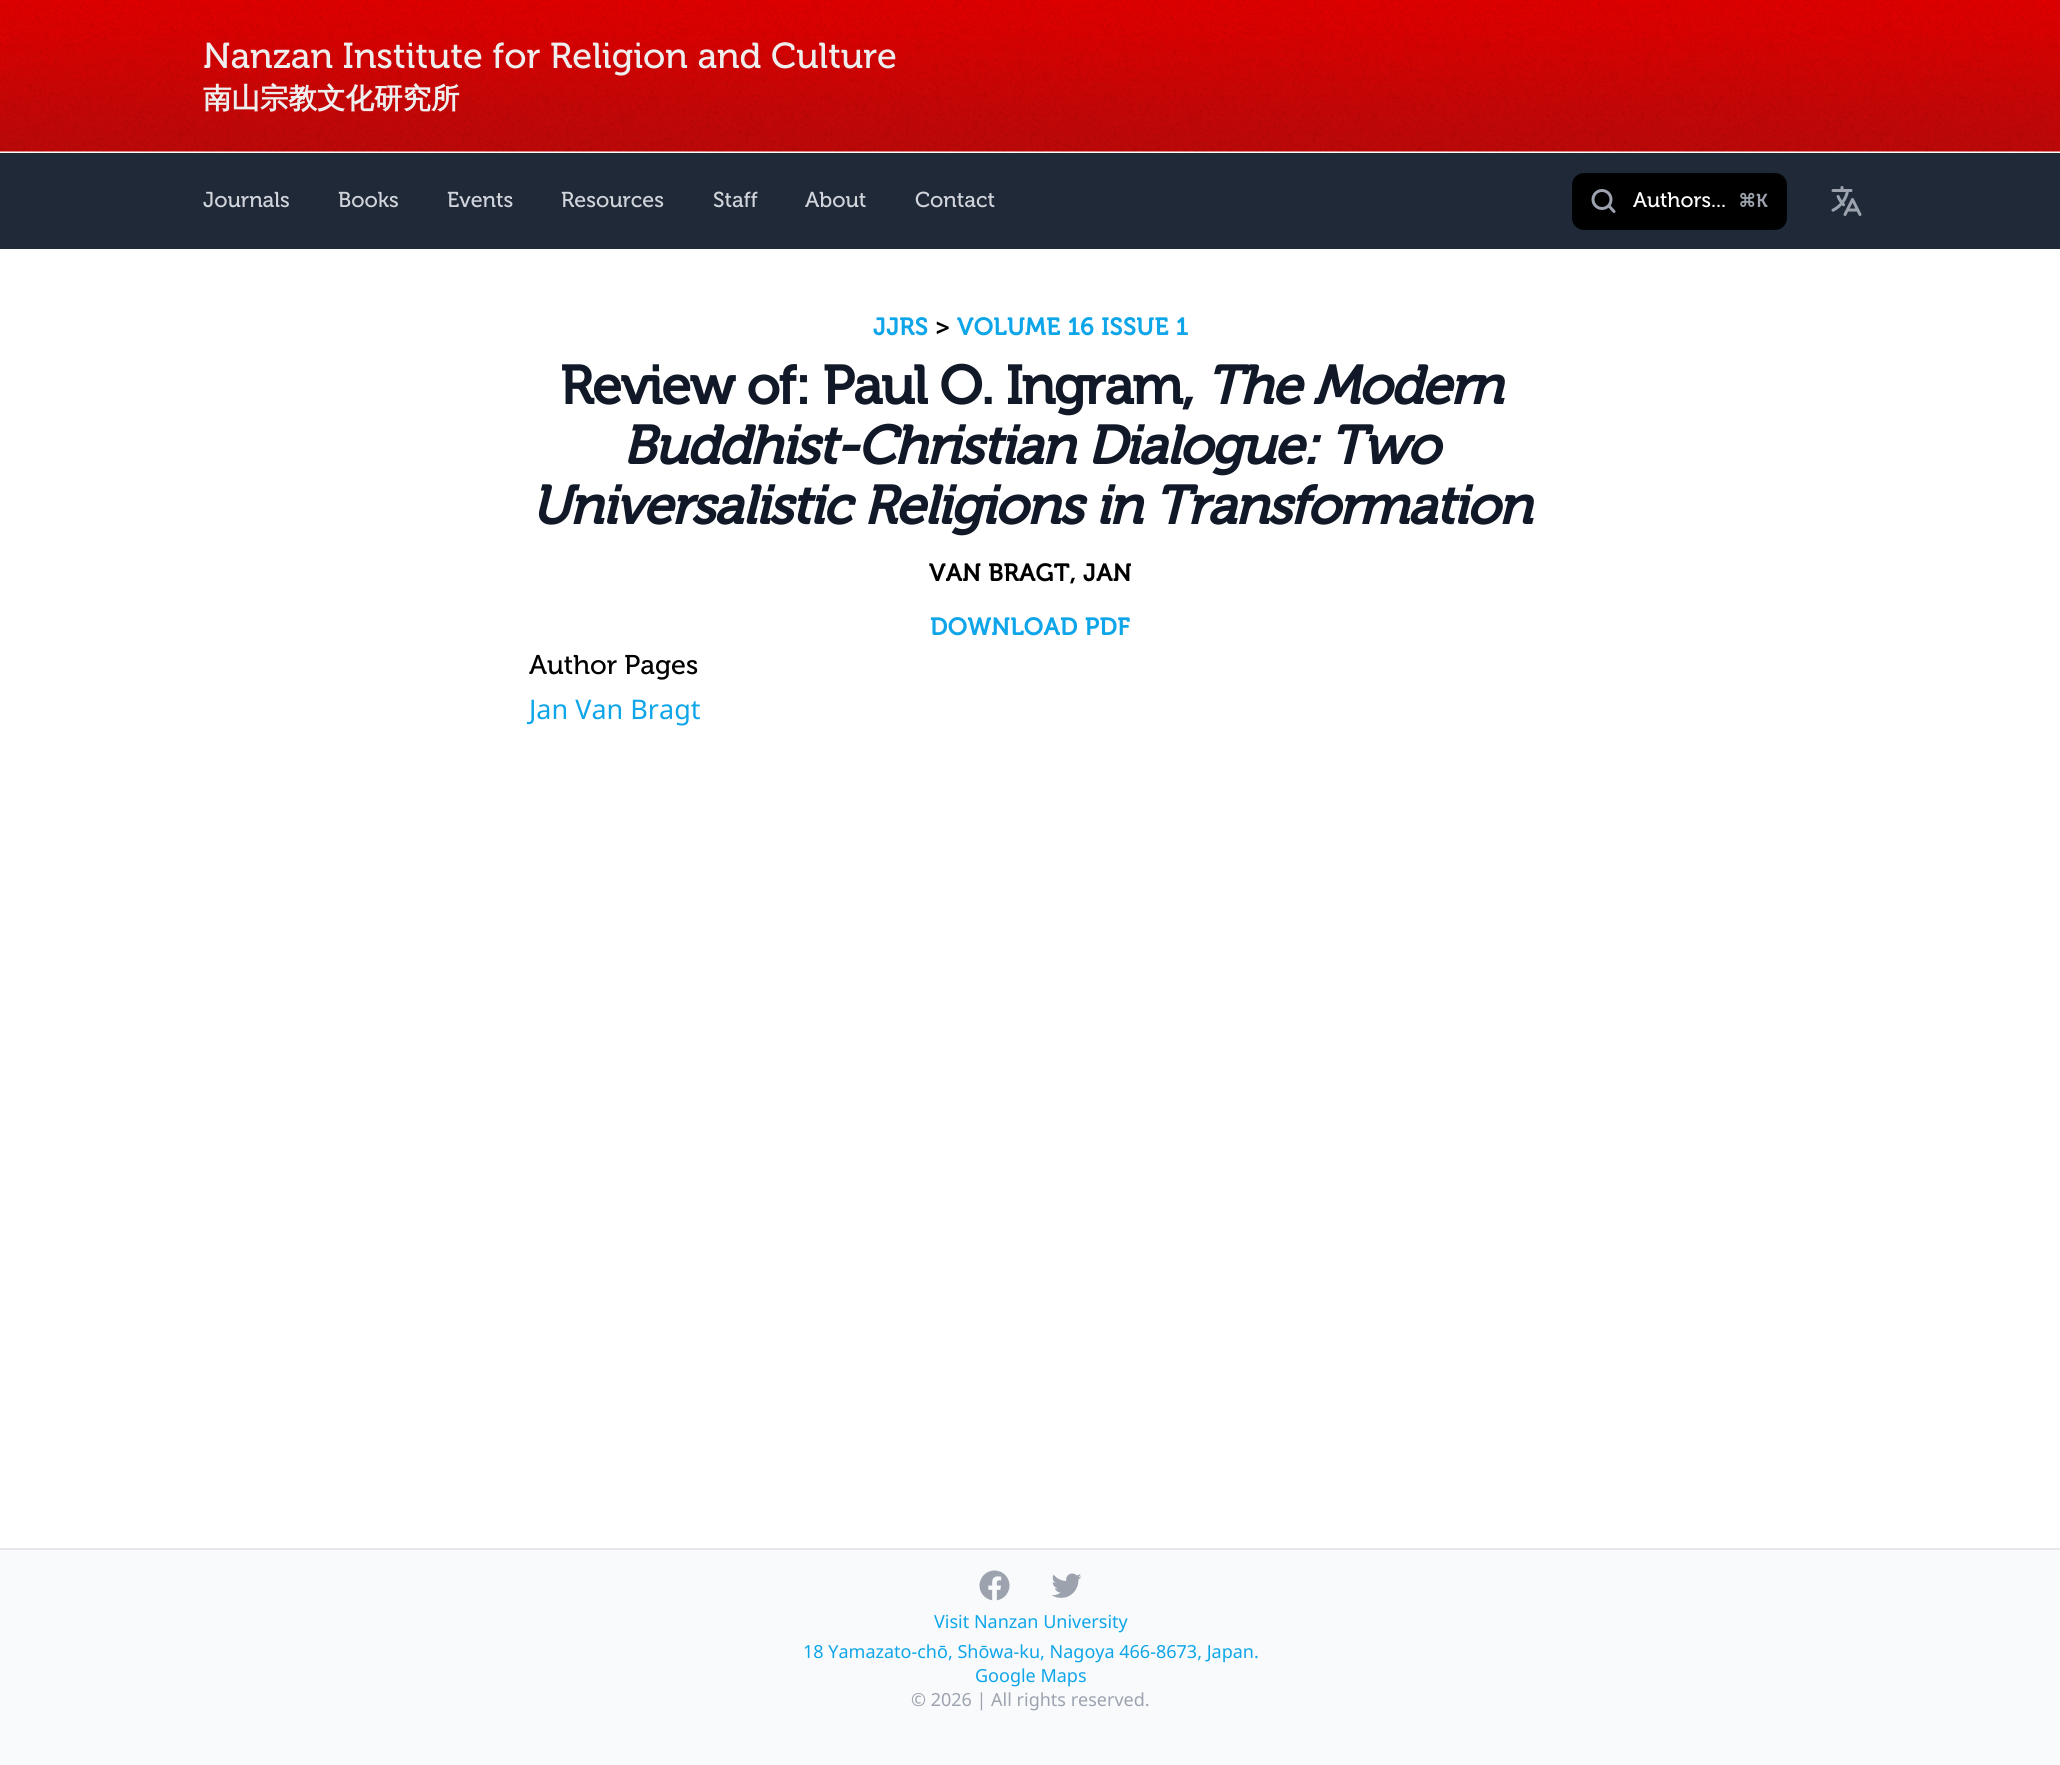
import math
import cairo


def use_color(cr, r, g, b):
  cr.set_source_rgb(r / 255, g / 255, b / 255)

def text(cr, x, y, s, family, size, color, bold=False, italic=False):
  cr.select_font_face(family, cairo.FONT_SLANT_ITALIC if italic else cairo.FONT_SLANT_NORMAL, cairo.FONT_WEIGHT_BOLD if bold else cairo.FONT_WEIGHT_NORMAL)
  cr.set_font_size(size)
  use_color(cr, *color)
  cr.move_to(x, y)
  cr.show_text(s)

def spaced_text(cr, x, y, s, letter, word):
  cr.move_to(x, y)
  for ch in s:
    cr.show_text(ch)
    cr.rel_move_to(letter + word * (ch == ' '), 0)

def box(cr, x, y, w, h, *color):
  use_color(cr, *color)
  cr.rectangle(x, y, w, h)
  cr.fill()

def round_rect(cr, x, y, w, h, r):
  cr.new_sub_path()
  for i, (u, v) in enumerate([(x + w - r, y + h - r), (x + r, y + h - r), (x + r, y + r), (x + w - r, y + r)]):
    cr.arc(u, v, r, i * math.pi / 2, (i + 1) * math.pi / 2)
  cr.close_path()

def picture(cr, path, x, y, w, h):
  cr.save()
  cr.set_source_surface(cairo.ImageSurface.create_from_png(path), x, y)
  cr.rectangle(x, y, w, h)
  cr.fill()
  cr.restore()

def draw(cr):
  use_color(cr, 255, 255, 255)
  cr.paint()
  picture(cr, "img_01.png", 0, 0, 2060, 153)
  box(cr, 0, 153, 2060, 96, 31, 41, 55)
  use_color(cr, 0, 0, 0)
  round_rect(cr, 1572, 173, 215, 57, 12)
  cr.fill()
  round_rect(cr, 1573, 174, 213, 55, 11)
  cr.set_source_rgba(0.067, 0.094, 0.153, 0.1)
  cr.stroke()
  cr.new_path()
  cr.move_to(1614, 211.5)
  cr.line_to(1609, 206)
  use_color(cr, 156, 163, 175)
  cr.set_line_width(3)
  cr.set_line_cap(cairo.LINE_CAP_ROUND)
  cr.set_line_join(cairo.LINE_JOIN_ROUND)
  cr.stroke()
  cr.arc(1602, 199.5, 9, 0, 2 * math.pi)
  cr.set_line_cap(cairo.LINE_CAP_BUTT)
  cr.set_line_join(cairo.LINE_JOIN_MITER)
  cr.stroke()
  picture(cr, "img_02.png", 1831, 186, 31, 30)
  box(cr, 0, 1550, 2060, 215, 248, 250, 252)
  box(cr, 0, 1548, 2060, 2, 229, 231, 235)
  picture(cr, "img_03.png", 979, 1570, 31, 31)
  picture(cr, "img_04.png", 1051, 1573, 31, 25)
  text(cr, 203, 68, "Nanzan Institute for Religion and Culture", "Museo", 36, (238, 238, 238))
  text(cr, 203, 108, "南山宗教文化研究所", "WenQuanYi Zen Hei", 28.5, (238, 238, 238), bold=True)
  text(cr, 203, 207, "Journals", "Museo", 21.5, (209, 213, 219))
  text(cr, 338, 207, "Books", "Museo", 21.5, (209, 213, 219))
  text(cr, 447, 207, "Events", "Museo", 21.5, (209, 213, 219))
  text(cr, 561, 207, "Resources", "Museo", 21.5, (209, 213, 219))
  text(cr, 713, 207, "Staff", "Museo", 21.5, (209, 213, 219))
  text(cr, 805, 207, "About", "Museo", 21.5, (209, 213, 219))
  text(cr, 915, 207, "Contact", "Museo", 21.5, (209, 213, 219))
  text(cr, 1633, 207, "Authors...", "Museo", 21, (255, 255, 255))
  text(cr, 1738, 207, "⌘", "DejaVu Sans", 18, (156, 163, 175), bold=True)
  text(cr, 1756, 207, "K", "Museo", 18, (156, 163, 175), bold=True)
  cr.set_font_size(24)
  use_color(cr, 14, 165, 233)
  spaced_text(cr, 873, 335, "JJRS", 0.6, 0)
  use_color(cr, 0, 0, 0)
  spaced_text(cr, 935, 335, ">", 0.6, 0)
  use_color(cr, 14, 165, 233)
  spaced_text(cr, 957, 335, "VOLUME 16 ISSUE 1", 0.6, 0)
  cr.set_font_size(54)
  use_color(cr, 17, 24, 39)
  spaced_text(cr, 560, 404, "Review of: Paul O. Ingram,", -1.35, 0)
  cr.select_font_face("Museo", cairo.FONT_SLANT_ITALIC, cairo.FONT_WEIGHT_BOLD)
  spaced_text(cr, 1206, 404, "The Modern", -1.35, 0)
  spaced_text(cr, 622, 464, "Buddhist-Christian Dialogue: Two", -1.35, 0)
  spaced_text(cr, 531, 524, "Universalistic Religions in Transformation", -1.35, 0)
  cr.select_font_face("Museo", cairo.FONT_SLANT_NORMAL, cairo.FONT_WEIGHT_BOLD)
  cr.set_font_size(24)
  use_color(cr, 0, 0, 0)
  spaced_text(cr, 929, 581, "VAN BRAGT, JAN", 0.6, 0)
  use_color(cr, 14, 165, 233)
  spaced_text(cr, 930, 635, "DOWNLOAD PDF", 0.6, 0)
  text(cr, 529, 674, "Author Pages", "Museo", 27, (0, 0, 0))
  text(cr, 529, 719, "Jan Van Bragt", "Noto Sans", 27, (14, 165, 233))
  text(cr, 934, 1628, "Visit Nanzan University", "Noto Sans", 18, (14, 165, 233))
  text(cr, 803, 1658, "18 Yamazato-chō, Shōwa-ku, Nagoya 466-8673, Japan.", "Noto Sans", 18, (14, 165, 233))
  text(cr, 975, 1682, "Google Maps", "Noto Sans", 18, (14, 165, 233))
  text(cr, 911, 1706, "© 2026 | All rights reserved.", "Noto Sans", 18, (156, 163, 175))


surface = cairo.ImageSurface(cairo.FORMAT_RGB24, 2060, 1765)
cr = cairo.Context(surface)
options = cairo.FontOptions()
options.set_hint_metrics(cairo.HINT_METRICS_OFF)
options.set_hint_style(cairo.HINT_STYLE_NONE)
cr.set_font_options(options)
cr.set_miter_limit(4)
draw(cr)
surface.write_to_png("out.png")
